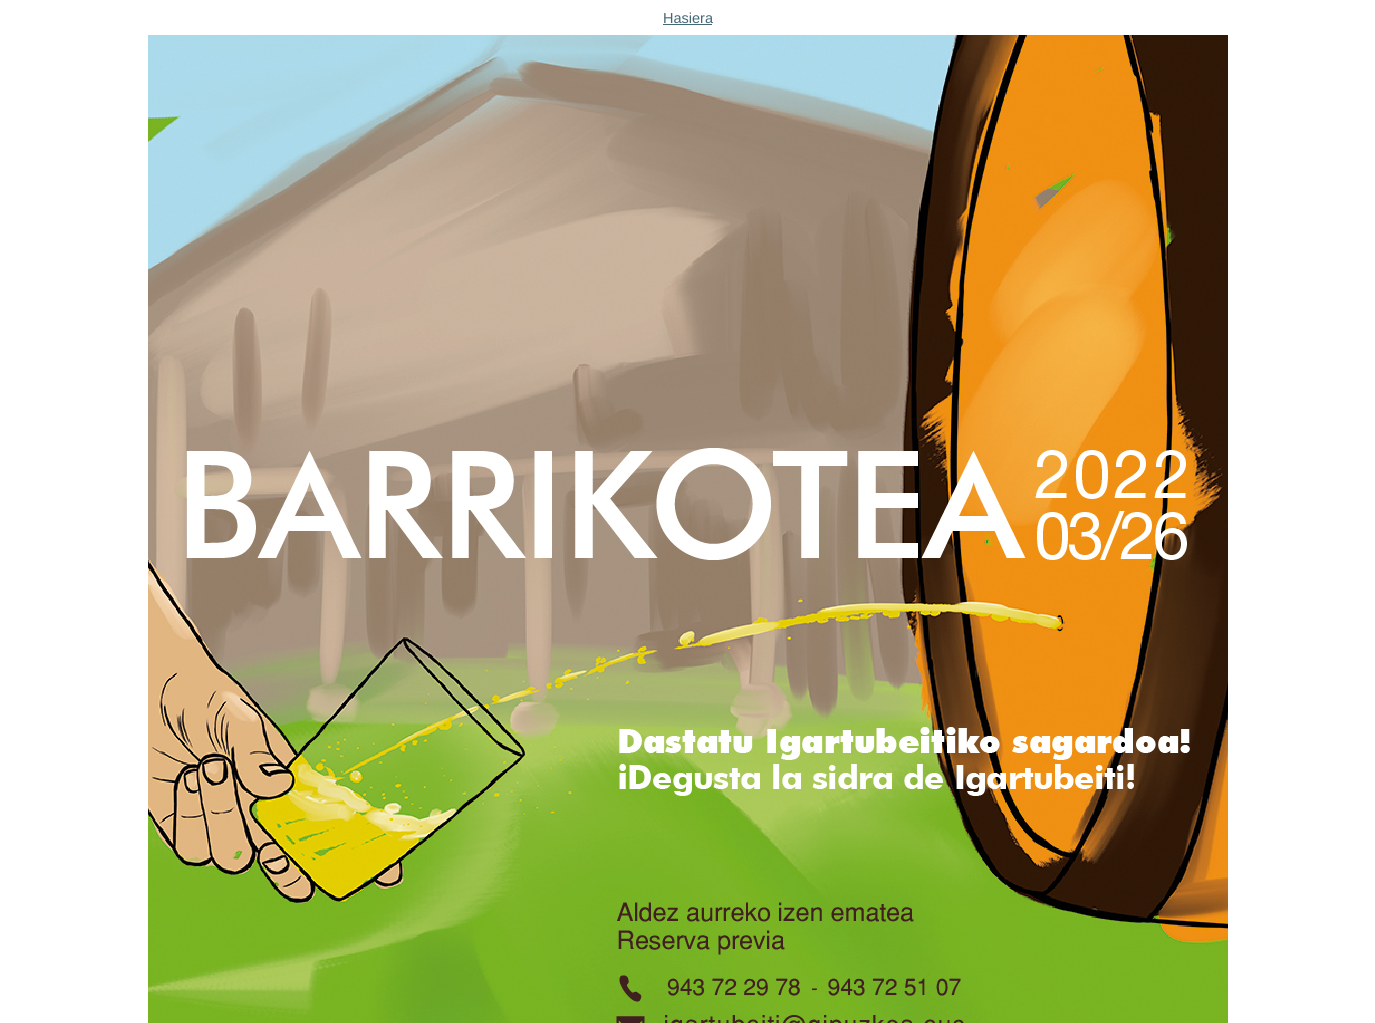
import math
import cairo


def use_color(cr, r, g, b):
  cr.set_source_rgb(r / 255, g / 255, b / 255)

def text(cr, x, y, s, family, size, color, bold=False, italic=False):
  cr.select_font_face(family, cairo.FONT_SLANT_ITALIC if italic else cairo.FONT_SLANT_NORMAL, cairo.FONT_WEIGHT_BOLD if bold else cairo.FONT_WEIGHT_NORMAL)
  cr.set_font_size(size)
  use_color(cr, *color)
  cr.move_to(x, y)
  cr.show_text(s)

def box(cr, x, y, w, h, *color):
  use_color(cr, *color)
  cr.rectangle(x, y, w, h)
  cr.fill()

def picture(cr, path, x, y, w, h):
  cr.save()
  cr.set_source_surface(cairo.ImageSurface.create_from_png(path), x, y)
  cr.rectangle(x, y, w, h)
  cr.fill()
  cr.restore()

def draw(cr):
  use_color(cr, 255, 255, 255)
  cr.paint()
  box(cr, 663, 24, 49, 1, 67, 105, 118)
  picture(cr, "img_01.png", 148, 35, 1080, 988)
  text(cr, 663, 23, "Hasiera", "Liberation Sans", 14.5, (67, 105, 118))


surface = cairo.ImageSurface(cairo.FORMAT_RGB24, 1375, 1023)
cr = cairo.Context(surface)
options = cairo.FontOptions()
options.set_hint_metrics(cairo.HINT_METRICS_OFF)
options.set_hint_style(cairo.HINT_STYLE_NONE)
cr.set_font_options(options)
cr.set_miter_limit(4)
draw(cr)
surface.write_to_png("out.png")
